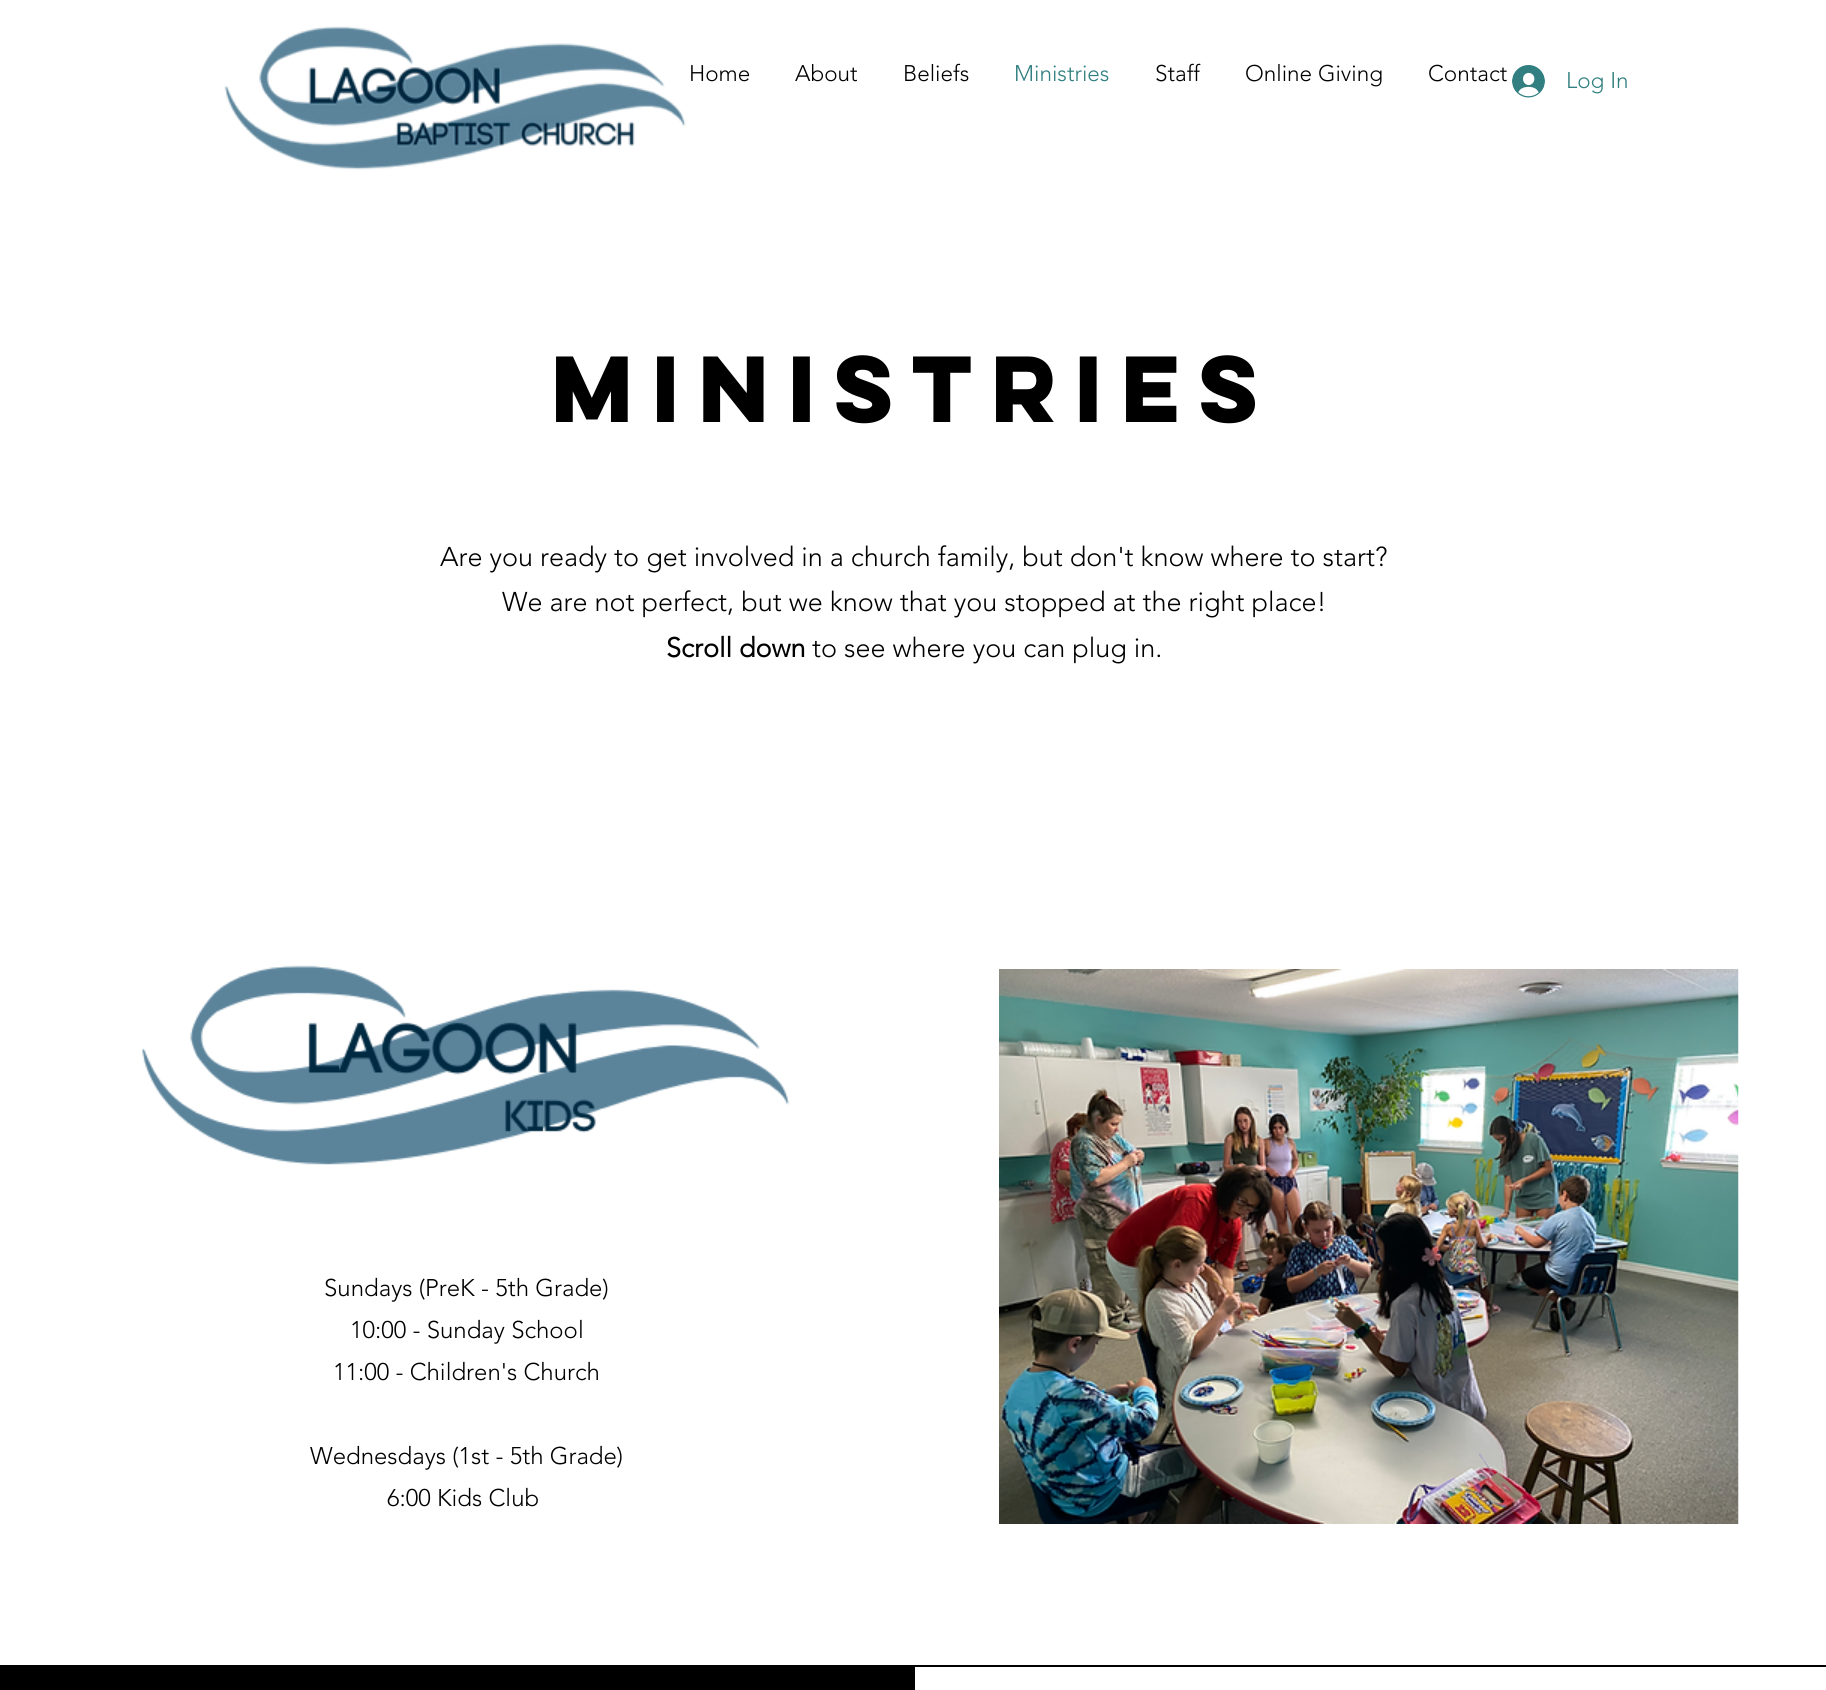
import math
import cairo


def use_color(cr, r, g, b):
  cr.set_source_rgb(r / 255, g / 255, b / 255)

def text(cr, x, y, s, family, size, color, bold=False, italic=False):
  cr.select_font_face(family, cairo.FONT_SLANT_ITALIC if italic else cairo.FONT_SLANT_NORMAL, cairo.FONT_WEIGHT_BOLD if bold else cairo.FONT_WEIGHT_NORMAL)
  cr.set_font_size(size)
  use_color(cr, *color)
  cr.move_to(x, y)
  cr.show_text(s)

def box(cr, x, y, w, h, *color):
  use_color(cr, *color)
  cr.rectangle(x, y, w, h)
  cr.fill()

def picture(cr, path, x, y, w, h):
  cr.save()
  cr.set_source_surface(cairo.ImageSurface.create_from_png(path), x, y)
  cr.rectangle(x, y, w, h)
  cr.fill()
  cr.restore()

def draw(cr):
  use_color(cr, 255, 255, 255)
  cr.paint()
  picture(cr, "img_01.png", 224, 26, 462, 144)
  picture(cr, "img_02.png", 1512, 65, 33, 33)
  picture(cr, "img_03.png", 142, 965, 648, 200)
  picture(cr, "img_04.png", 999, 969, 740, 555)
  box(cr, 0, 1665, 1826, 25, 0, 0, 0)
  box(cr, 915, 1667, 911, 23, 255, 255, 255)
  text(cr, 689, 81, "Home", "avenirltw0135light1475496 Light", 22.5, (0, 0, 0))
  text(cr, 795, 81, "About", "avenirltw0135light1475496 Light", 22.5, (0, 0, 0))
  text(cr, 903, 81, "Beliefs", "avenirltw0135light1475496 Light", 22.5, (0, 0, 0))
  text(cr, 1014, 81, "Ministries", "avenirltw0135light1475496 Light", 22.5, (49, 127, 129))
  text(cr, 1155, 81, "Staff", "avenirltw0135light1475496 Light", 22.5, (0, 0, 0))
  text(cr, 1245, 81, "Online Giving", "avenirltw0135light1475496 Light", 22.5, (0, 0, 0))
  text(cr, 1428, 81, "Contact", "avenirltw0135light1475496 Light", 22.5, (0, 0, 0))
  text(cr, 1566, 88, "Log In", "avenirltw0135light1475496 Light", 22.5, (49, 127, 129))
  text(cr, 551, 422, "Ministries", "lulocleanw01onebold", 84, (0, 0, 0), bold=True)
  text(cr, 440, 566, "Are you ready to get involved in a church family, but don't know where to start?", "avenirltw0135light1475496 Light", 27, (0, 0, 0))
  text(cr, 502, 611, "We are not perfect, but we know that you stopped at the right place!", "avenirltw0135light1475496 Light", 27, (0, 0, 0))
  text(cr, 666, 657, "Scroll down", "avenirltw0135light1475496", 27, (0, 0, 0), bold=True)
  text(cr, 812, 657, "to see where you can plug in.", "avenirltw0135light1475496 Light", 27, (0, 0, 0))
  text(cr, 324, 1296, "Sundays (PreK - 5th Grade)", "avenirltw0135light1475496 Light", 24, (0, 0, 0))
  text(cr, 350, 1338, "10:00 - Sunday School", "avenirltw0135light1475496 Light", 24, (0, 0, 0))
  text(cr, 333, 1380, "11:00 - Children's Church", "avenirltw0135light1475496 Light", 24, (0, 0, 0))
  text(cr, 310, 1464, "Wednesdays (1st - 5th Grade)", "avenirltw0135light1475496 Light", 24, (0, 0, 0))
  text(cr, 387, 1506, "6:00 Kids Club", "avenirltw0135light1475496 Light", 24, (0, 0, 0))


surface = cairo.ImageSurface(cairo.FORMAT_RGB24, 1826, 1690)
cr = cairo.Context(surface)
options = cairo.FontOptions()
options.set_hint_metrics(cairo.HINT_METRICS_OFF)
options.set_hint_style(cairo.HINT_STYLE_NONE)
cr.set_font_options(options)
cr.set_miter_limit(4)
draw(cr)
surface.write_to_png("out.png")
